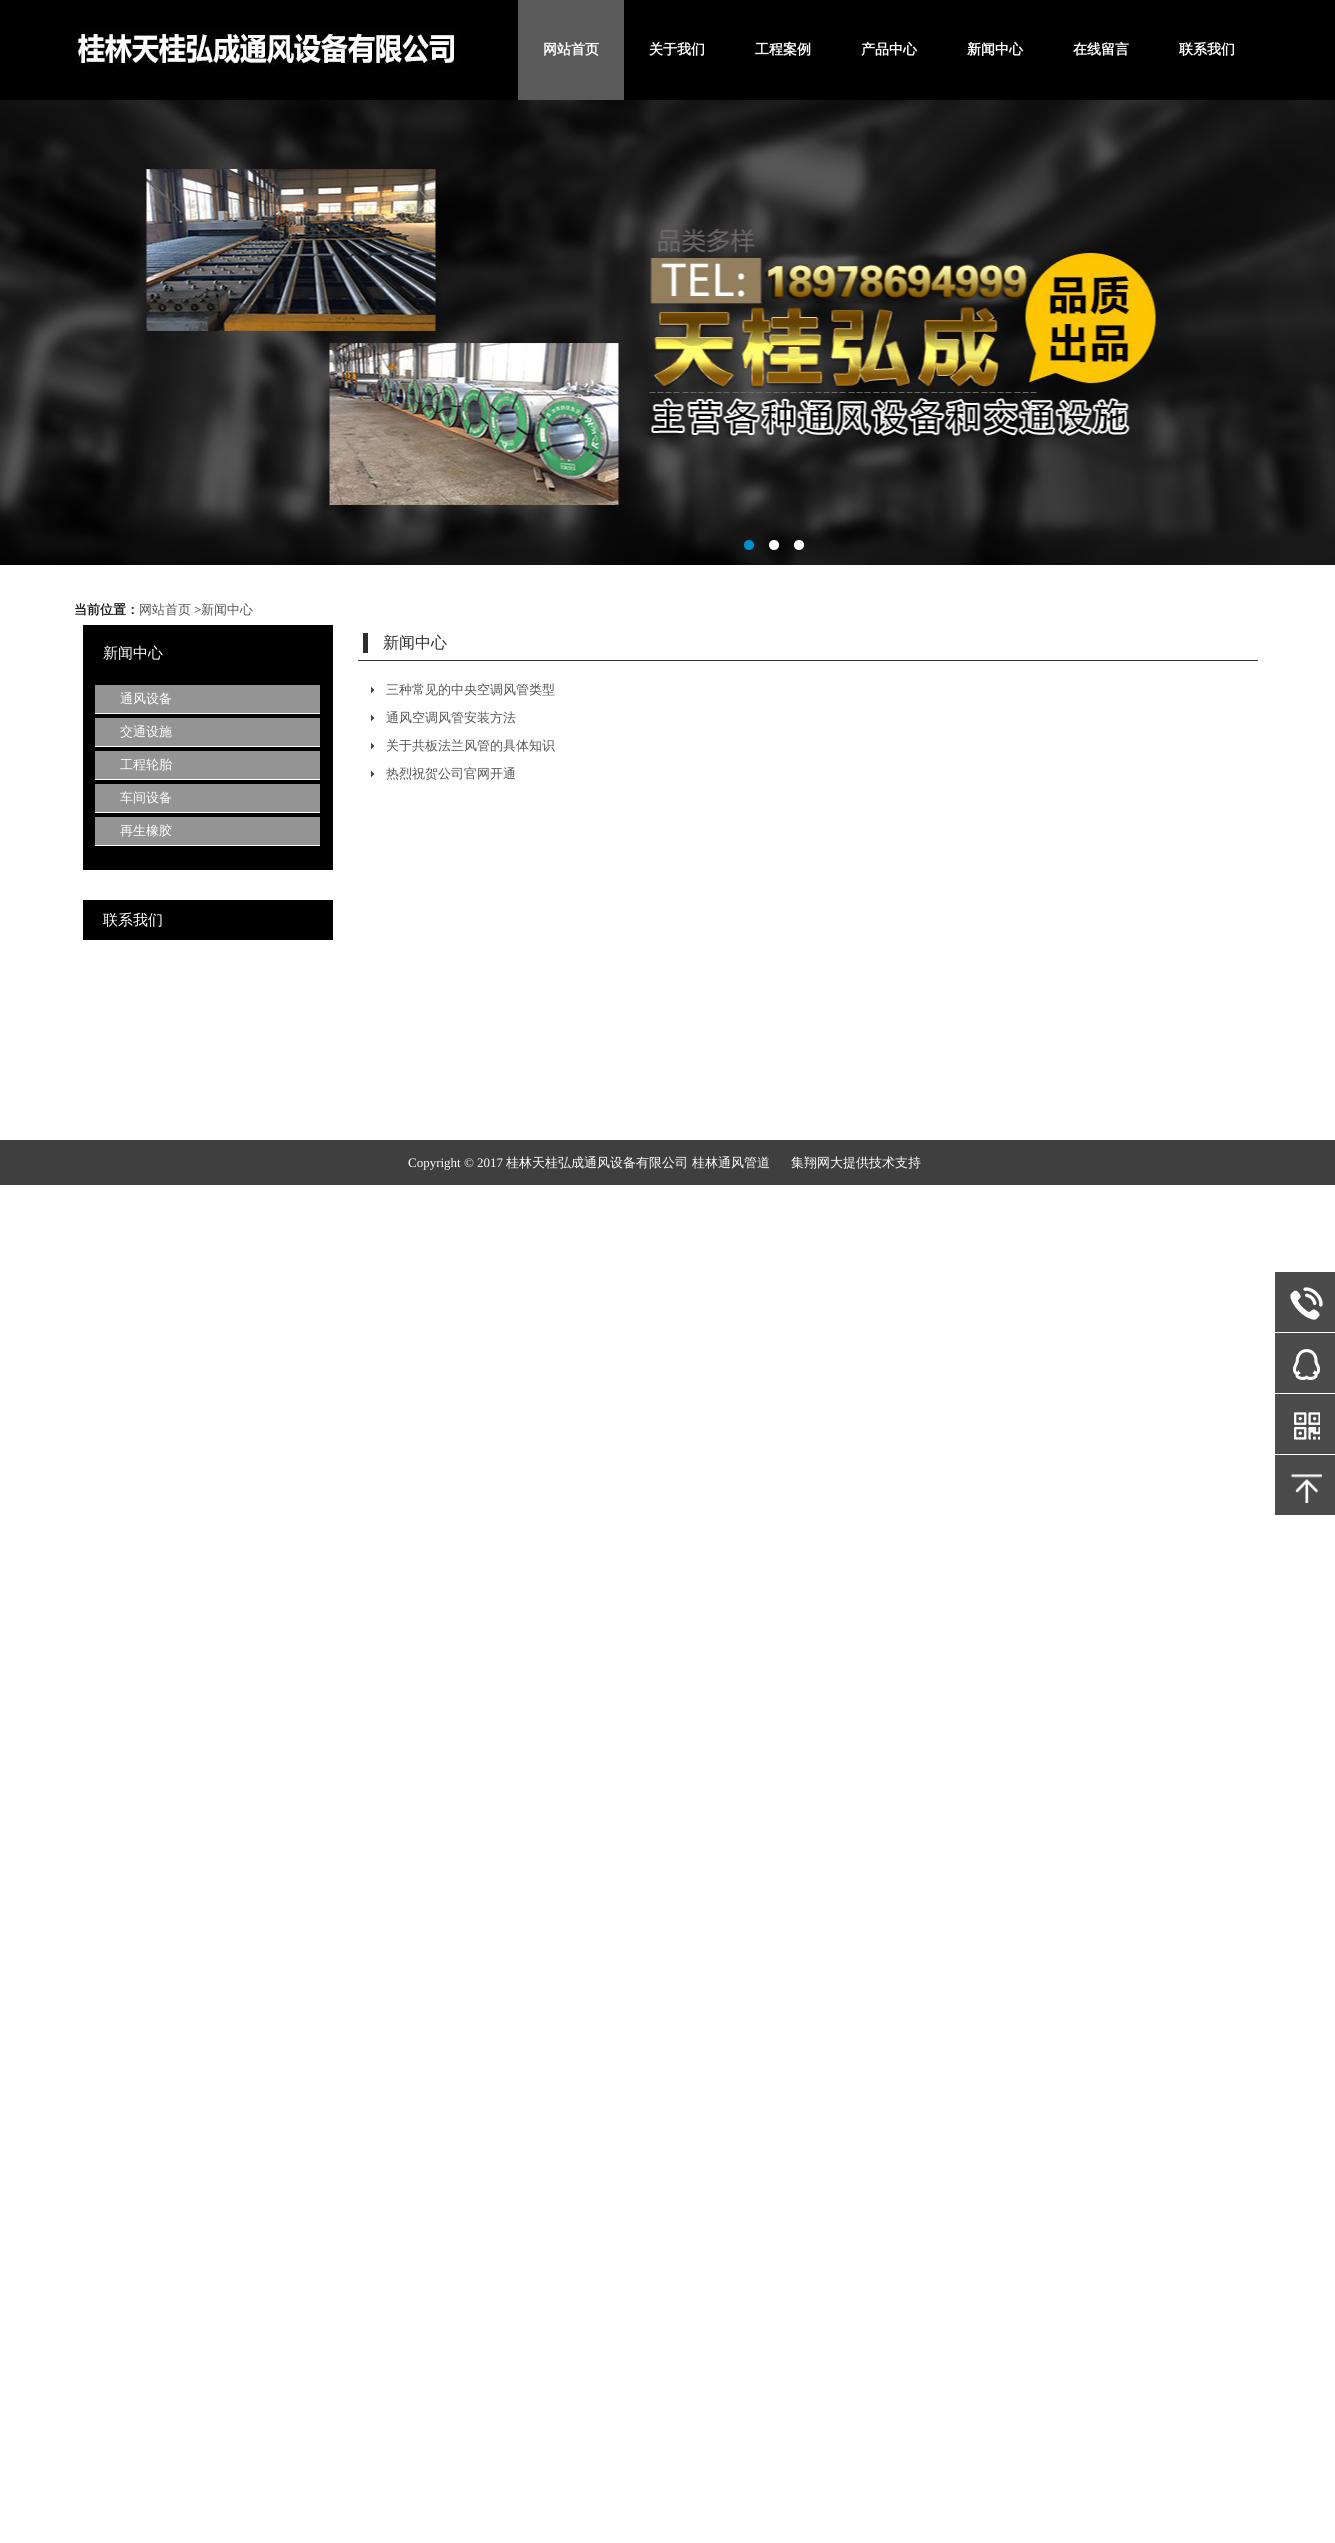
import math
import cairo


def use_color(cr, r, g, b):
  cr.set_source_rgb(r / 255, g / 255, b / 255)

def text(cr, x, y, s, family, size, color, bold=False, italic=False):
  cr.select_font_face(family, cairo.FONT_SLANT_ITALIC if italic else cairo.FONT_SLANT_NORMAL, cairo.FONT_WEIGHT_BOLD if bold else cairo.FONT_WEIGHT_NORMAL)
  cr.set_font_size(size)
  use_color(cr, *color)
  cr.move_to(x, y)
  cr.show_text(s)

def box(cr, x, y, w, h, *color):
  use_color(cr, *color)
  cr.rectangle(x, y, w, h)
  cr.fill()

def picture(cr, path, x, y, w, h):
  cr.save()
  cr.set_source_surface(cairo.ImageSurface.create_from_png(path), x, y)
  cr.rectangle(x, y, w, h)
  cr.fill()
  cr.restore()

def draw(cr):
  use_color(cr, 255, 255, 255)
  cr.paint()
  box(cr, 0, 0, 1335, 100, 0, 0, 0)
  picture(cr, "img_01.png", 76, 27, 384, 39)
  box(cr, 518, 0, 106, 100, 90, 90, 90)
  picture(cr, "img_02.png", 0, 100, 1335, 465)
  use_color(cr, 0, 146, 206)
  cr.arc(749, 545, 5, 0, 2 * math.pi)
  cr.fill()
  use_color(cr, 255, 255, 255)
  cr.arc(774, 545, 5, 0, 2 * math.pi)
  cr.fill()
  cr.arc(799, 545, 5, 0, 2 * math.pi)
  cr.fill()
  box(cr, 83, 625, 250, 245, 0, 0, 0)
  box(cr, 95, 685, 225, 28, 148, 148, 148)
  box(cr, 95, 713, 225, 1, 255, 255, 255)
  box(cr, 95, 718, 225, 28, 148, 148, 148)
  box(cr, 95, 746, 225, 1, 255, 255, 255)
  box(cr, 95, 751, 225, 28, 148, 148, 148)
  box(cr, 95, 779, 225, 1, 255, 255, 255)
  box(cr, 95, 784, 225, 28, 148, 148, 148)
  box(cr, 95, 812, 225, 1, 255, 255, 255)
  box(cr, 95, 817, 225, 28, 148, 148, 148)
  box(cr, 95, 845, 225, 1, 255, 255, 255)
  box(cr, 83, 900, 250, 40, 0, 0, 0)
  box(cr, 358, 660, 900, 1, 51, 51, 51)
  box(cr, 363, 633, 5, 20, 46, 46, 46)
  picture(cr, "img_03.png", 371, 687, 3, 6)
  picture(cr, "img_03.png", 371, 715, 3, 6)
  picture(cr, "img_03.png", 371, 743, 3, 6)
  picture(cr, "img_03.png", 371, 771, 3, 6)
  box(cr, 0, 1140, 1335, 45, 63, 63, 63)
  box(cr, 1275, 1272, 60, 60, 75, 75, 75)
  picture(cr, "img_04.png", 1290, 1287, 33, 33)
  box(cr, 1275, 1333, 60, 60, 75, 75, 75)
  picture(cr, "img_05.png", 1293, 1349, 27, 31)
  box(cr, 1275, 1394, 60, 60, 75, 75, 75)
  picture(cr, "img_06.png", 1294, 1412, 26, 28)
  box(cr, 1275, 1455, 60, 60, 75, 75, 75)
  picture(cr, "img_07.png", 1291, 1474, 31, 29)
  text(cr, 543, 54, "网站首页", "WenQuanYi Zen Hei", 14, (255, 255, 255), bold=True)
  text(cr, 649, 54, "关于我们", "WenQuanYi Zen Hei", 14, (255, 255, 255), bold=True)
  text(cr, 755, 54, "工程案例", "WenQuanYi Zen Hei", 14, (255, 255, 255), bold=True)
  text(cr, 861, 54, "产品中心", "WenQuanYi Zen Hei", 14, (255, 255, 255), bold=True)
  text(cr, 967, 54, "新闻中心", "WenQuanYi Zen Hei", 14, (255, 255, 255), bold=True)
  text(cr, 1073, 54, "在线留言", "WenQuanYi Zen Hei", 14, (255, 255, 255), bold=True)
  text(cr, 1179, 54, "联系我们", "WenQuanYi Zen Hei", 14, (255, 255, 255), bold=True)
  text(cr, 74, 614, "当前位置：", "WenQuanYi Zen Hei", 13, (32, 32, 32), bold=True)
  text(cr, 139, 614, "网站首页", "WenQuanYi Zen Hei Medium", 13, (85, 85, 85))
  text(cr, 194, 614, ">", "Liberation Serif", 13, (32, 32, 32))
  text(cr, 201, 614, "新闻中心", "WenQuanYi Zen Hei Medium", 13, (85, 85, 85))
  text(cr, 103, 658, "新闻中心", "WenQuanYi Zen Hei Medium", 15, (255, 255, 255))
  text(cr, 120, 703, "通风设备", "WenQuanYi Zen Hei Medium", 13, (255, 255, 255))
  text(cr, 120, 736, "交通设施", "WenQuanYi Zen Hei Medium", 13, (255, 255, 255))
  text(cr, 120, 769, "工程轮胎", "WenQuanYi Zen Hei Medium", 13, (255, 255, 255))
  text(cr, 120, 802, "车间设备", "WenQuanYi Zen Hei Medium", 13, (255, 255, 255))
  text(cr, 120, 835, "再生橡胶", "WenQuanYi Zen Hei Medium", 13, (255, 255, 255))
  text(cr, 103, 925, "联系我们", "WenQuanYi Zen Hei Medium", 15, (255, 255, 255))
  text(cr, 383, 648, "新闻中心", "WenQuanYi Zen Hei Medium", 16, (46, 46, 46))
  text(cr, 386, 694, "三种常见的中央空调风管类型", "WenQuanYi Zen Hei Medium", 13, (85, 85, 85))
  text(cr, 386, 722, "通风空调风管安装方法", "WenQuanYi Zen Hei Medium", 13, (85, 85, 85))
  text(cr, 386, 750, "关于共板法兰风管的具体知识", "WenQuanYi Zen Hei Medium", 13, (85, 85, 85))
  text(cr, 386, 778, "热烈祝贺公司官网开通", "WenQuanYi Zen Hei Medium", 13, (85, 85, 85))
  text(cr, 408, 1167, "Copyright © 2017", "Liberation Serif", 13, (255, 255, 255))
  text(cr, 506, 1167, "桂林天桂弘成通风设备有限公司", "WenQuanYi Zen Hei Medium", 13, (255, 255, 255))
  text(cr, 692, 1167, "桂林通风管道", "WenQuanYi Zen Hei Medium", 13, (255, 255, 255))
  text(cr, 791, 1167, "集翔网大提供技术支持", "WenQuanYi Zen Hei Medium", 13, (255, 255, 255))


surface = cairo.ImageSurface(cairo.FORMAT_RGB24, 1335, 2543)
cr = cairo.Context(surface)
options = cairo.FontOptions()
options.set_hint_metrics(cairo.HINT_METRICS_OFF)
options.set_hint_style(cairo.HINT_STYLE_NONE)
cr.set_font_options(options)
cr.set_miter_limit(4)
draw(cr)
surface.write_to_png("out.png")
